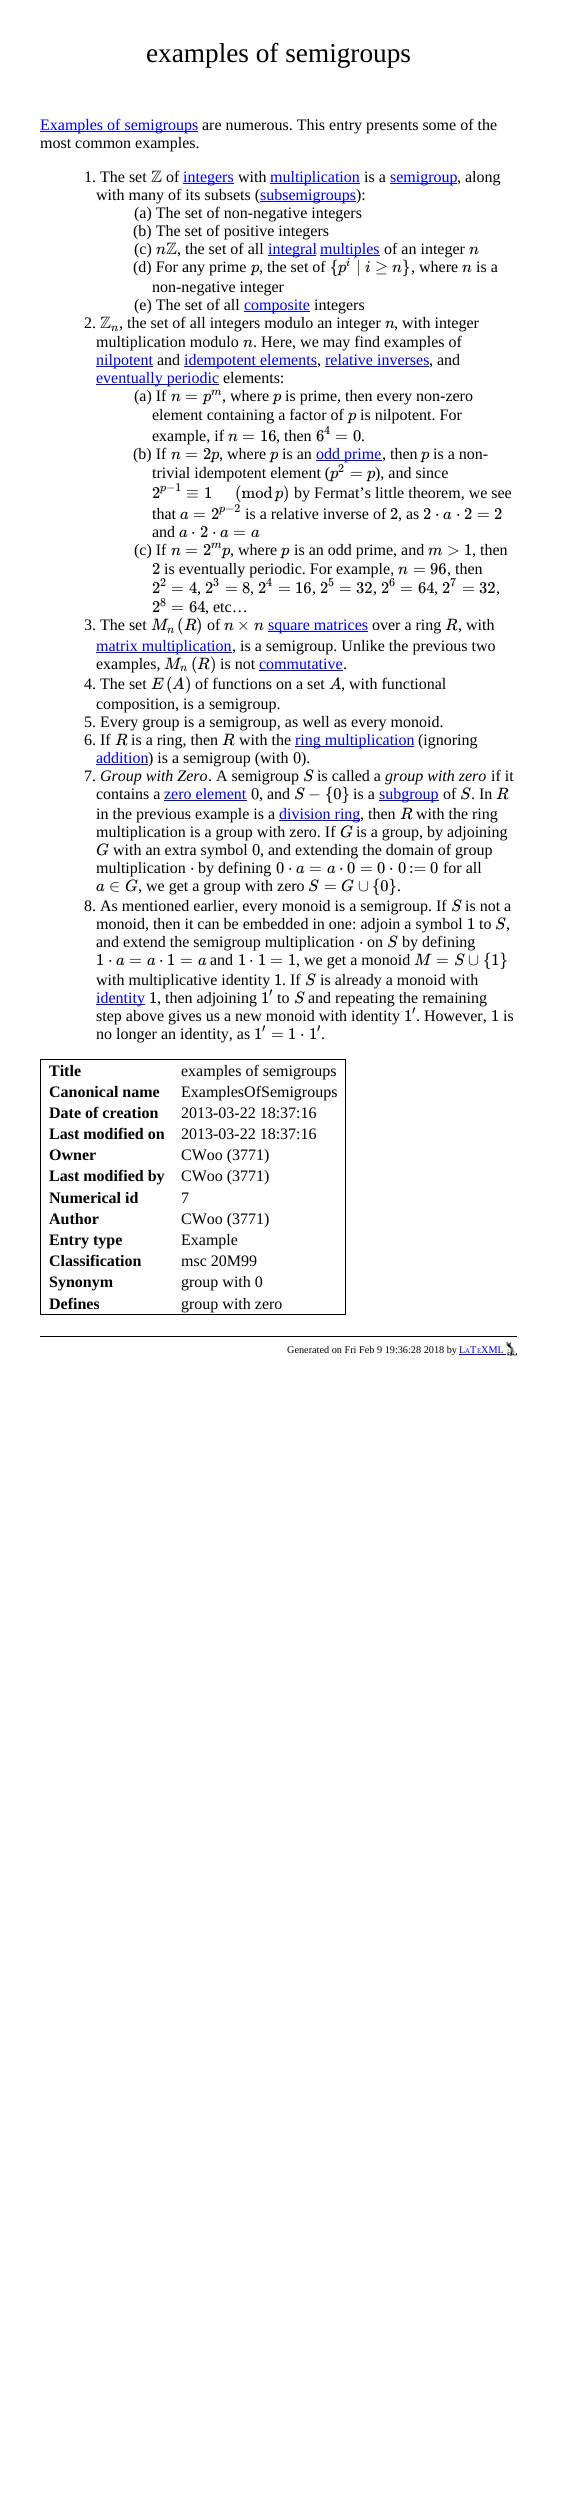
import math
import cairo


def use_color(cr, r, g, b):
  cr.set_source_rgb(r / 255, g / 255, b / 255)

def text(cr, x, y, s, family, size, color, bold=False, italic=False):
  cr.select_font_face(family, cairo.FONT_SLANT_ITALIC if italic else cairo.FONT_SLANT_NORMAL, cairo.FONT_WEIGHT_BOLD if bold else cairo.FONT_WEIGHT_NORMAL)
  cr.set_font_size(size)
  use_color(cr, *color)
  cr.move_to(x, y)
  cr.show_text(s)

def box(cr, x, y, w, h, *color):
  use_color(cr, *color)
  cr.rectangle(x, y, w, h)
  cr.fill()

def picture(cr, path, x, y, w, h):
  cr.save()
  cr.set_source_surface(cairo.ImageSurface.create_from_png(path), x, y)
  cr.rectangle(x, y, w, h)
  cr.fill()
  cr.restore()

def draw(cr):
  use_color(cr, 255, 255, 255)
  cr.paint()
  box(cr, 40, 131, 158, 1, 0, 0, 238)
  box(cr, 183, 183, 51, 1, 0, 0, 238)
  box(cr, 270, 183, 90, 1, 0, 0, 238)
  box(cr, 390, 183, 67, 1, 0, 0, 238)
  box(cr, 260, 201, 96, 1, 0, 0, 238)
  box(cr, 268, 255, 48, 1, 0, 0, 238)
  box(cr, 320, 255, 60, 1, 0, 0, 238)
  box(cr, 244, 311, 66, 1, 0, 0, 238)
  box(cr, 96, 366, 57, 1, 0, 0, 238)
  box(cr, 184, 366, 133, 1, 0, 0, 238)
  box(cr, 325, 366, 104, 1, 0, 0, 238)
  box(cr, 96, 384, 123, 1, 0, 0, 238)
  box(cr, 316, 460, 66, 1, 0, 0, 238)
  box(cr, 268, 631, 100, 1, 0, 0, 238)
  box(cr, 96, 652, 136, 1, 0, 0, 238)
  box(cr, 259, 670, 84, 1, 0, 0, 238)
  box(cr, 295, 746, 119, 1, 0, 0, 238)
  box(cr, 96, 764, 52, 1, 0, 0, 238)
  box(cr, 164, 800, 83, 1, 0, 0, 238)
  box(cr, 379, 800, 60, 1, 0, 0, 238)
  box(cr, 279, 820, 81, 1, 0, 0, 238)
  box(cr, 96, 1004, 49, 1, 0, 0, 238)
  box(cr, 40, 1059, 306, 1, 0, 0, 0)
  box(cr, 345, 1081, 1, 234, 0, 0, 0)
  box(cr, 40, 1314, 306, 1, 0, 0, 0)
  box(cr, 40, 1081, 1, 234, 0, 0, 0)
  box(cr, 40, 1059, 1, 23, 0, 0, 0)
  box(cr, 345, 1059, 1, 23, 0, 0, 0)
  box(cr, 40, 1336, 477, 1, 0, 0, 0)
  box(cr, 459, 1354, 47, 1, 0, 0, 238)
  picture(cr, "img_01.png", 506, 1342, 11, 14)
  text(cr, 146, 62, "examples of semigroups", "Liberation Serif", 27.25, (0, 0, 0))
  text(cr, 40, 130, "Examples of semigroups", "Liberation Serif", 16, (0, 0, 238))
  text(cr, 202, 130, "are numerous. This entry presents some of the", "Liberation Serif", 16, (0, 0, 0))
  text(cr, 40, 148, "most common examples.", "Liberation Serif", 16, (0, 0, 0))
  text(cr, 84, 182, "1. The set", "Liberation Serif", 16, (0, 0, 0))
  text(cr, 151, 182, "Z", "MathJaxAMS", 16.5, (0, 0, 0))
  text(cr, 166, 182, "of", "Liberation Serif", 16, (0, 0, 0))
  text(cr, 183, 182, "integers", "Liberation Serif", 16, (0, 0, 238))
  text(cr, 238, 182, "with", "Liberation Serif", 16, (0, 0, 0))
  text(cr, 270, 182, "multiplication", "Liberation Serif", 16, (0, 0, 238))
  text(cr, 364, 182, "is a", "Liberation Serif", 16, (0, 0, 0))
  text(cr, 390, 182, "semigroup", "Liberation Serif", 16, (0, 0, 238))
  text(cr, 457, 182, ", along", "Liberation Serif", 16, (0, 0, 0))
  text(cr, 96, 200, "with many of its subsets (", "Liberation Serif", 16, (0, 0, 0))
  text(cr, 260, 200, "subsemigroups", "Liberation Serif", 16, (0, 0, 238))
  text(cr, 356, 200, "):", "Liberation Serif", 16, (0, 0, 0))
  text(cr, 134, 218, "(a) The set of non-negative integers", "Liberation Serif", 16, (0, 0, 0))
  text(cr, 133, 236, "(b) The set of positive integers", "Liberation Serif", 16, (0, 0, 0))
  text(cr, 134, 254, "(c)", "Liberation Serif", 16, (0, 0, 0))
  text(cr, 156, 254, "n", "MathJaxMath", 16.5, (0, 0, 0), italic=True)
  text(cr, 166, 254, "Z", "MathJaxAMS", 16.5, (0, 0, 0))
  text(cr, 177, 254, ", the set of all", "Liberation Serif", 16, (0, 0, 0))
  text(cr, 268, 254, "integral", "Liberation Serif", 16, (0, 0, 238))
  text(cr, 320, 254, "multiples", "Liberation Serif", 16, (0, 0, 238))
  text(cr, 384, 254, "of an integer", "Liberation Serif", 16, (0, 0, 0))
  text(cr, 469, 254, "n", "MathJaxMath", 16.5, (0, 0, 0), italic=True)
  text(cr, 251, 272, "p", "MathJaxMath", 16.5, (0, 0, 0), italic=True)
  text(cr, 259, 272, ", the set of", "Liberation Serif", 16, (0, 0, 0))
  text(cr, 330, 272, "{", "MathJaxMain", 16.5, (0, 0, 0))
  text(cr, 346, 266, "i", "MathJaxMath", 12, (0, 0, 0), italic=True)
  text(cr, 338, 272, "p", "MathJaxMath", 16.5, (0, 0, 0), italic=True)
  text(cr, 356, 272, "∣", "MathJaxMain", 16.5, (0, 0, 0))
  text(cr, 365, 272, "i", "MathJaxMath", 16.5, (0, 0, 0), italic=True)
  text(cr, 375, 272, "≥", "MathJaxMain", 16.5, (0, 0, 0))
  text(cr, 392, 272, "n", "MathJaxMath", 16.5, (0, 0, 0), italic=True)
  text(cr, 402, 272, "}", "MathJaxMain", 16.5, (0, 0, 0))
  text(cr, 411, 272, ", where", "Liberation Serif", 16, (0, 0, 0))
  text(cr, 462, 272, "n", "MathJaxMath", 16.5, (0, 0, 0), italic=True)
  text(cr, 476, 272, "is a", "Liberation Serif", 16, (0, 0, 0))
  text(cr, 152, 292, "non-negative integer", "Liberation Serif", 16, (0, 0, 0))
  text(cr, 133, 272, "(d) For any prime", "Liberation Serif", 16, (0, 0, 0))
  text(cr, 134, 310, "(e) The set of all", "Liberation Serif", 16, (0, 0, 0))
  text(cr, 244, 310, "composite", "Liberation Serif", 16, (0, 0, 238))
  text(cr, 314, 310, "integers", "Liberation Serif", 16, (0, 0, 0))
  text(cr, 84, 328, "2.", "Liberation Serif", 16, (0, 0, 0))
  text(cr, 100, 328, "Z", "MathJaxAMS", 16.5, (0, 0, 0))
  text(cr, 111, 331, "n", "MathJaxMath", 12, (0, 0, 0), italic=True)
  text(cr, 119, 328, ", the set of all integers modulo an integer", "Liberation Serif", 16, (0, 0, 0))
  text(cr, 385, 328, "n", "MathJaxMath", 16.5, (0, 0, 0), italic=True)
  text(cr, 394, 328, ", with integer", "Liberation Serif", 16, (0, 0, 0))
  text(cr, 96, 347, "multiplication modulo", "Liberation Serif", 16, (0, 0, 0))
  text(cr, 243, 347, "n", "MathJaxMath", 16.5, (0, 0, 0), italic=True)
  text(cr, 253, 347, ". Here, we may find examples of", "Liberation Serif", 16, (0, 0, 0))
  text(cr, 96, 365, "nilpotent", "Liberation Serif", 16, (0, 0, 238))
  text(cr, 157, 365, "and", "Liberation Serif", 16, (0, 0, 0))
  text(cr, 184, 365, "idempotent elements", "Liberation Serif", 16, (0, 0, 238))
  text(cr, 317, 365, ",", "Liberation Serif", 16, (0, 0, 0))
  text(cr, 325, 365, "relative inverses", "Liberation Serif", 16, (0, 0, 238))
  text(cr, 429, 365, ", and", "Liberation Serif", 16, (0, 0, 0))
  text(cr, 96, 383, "eventually periodic", "Liberation Serif", 16, (0, 0, 238))
  text(cr, 223, 383, "elements:", "Liberation Serif", 16, (0, 0, 0))
  text(cr, 134, 401, "(a) If", "Liberation Serif", 16, (0, 0, 0))
  text(cr, 171, 401, "n", "MathJaxMath", 16.5, (0, 0, 0), italic=True)
  text(cr, 185, 401, "=", "MathJaxMain", 16.5, (0, 0, 0))
  text(cr, 203, 401, "p", "MathJaxMath", 16.5, (0, 0, 0), italic=True)
  text(cr, 211, 395, "m", "MathJaxMath", 12, (0, 0, 0), italic=True)
  text(cr, 222, 401, ", where", "Liberation Serif", 16, (0, 0, 0))
  text(cr, 273, 401, "p", "MathJaxMath", 16.5, (0, 0, 0), italic=True)
  text(cr, 285, 401, "is prime, then every non-zero", "Liberation Serif", 16, (0, 0, 0))
  text(cr, 152, 420, "element containing a factor of", "Liberation Serif", 16, (0, 0, 0))
  text(cr, 348, 420, "p", "MathJaxMath", 16.5, (0, 0, 0), italic=True)
  text(cr, 360, 420, "is nilpotent. For", "Liberation Serif", 16, (0, 0, 0))
  text(cr, 152, 441, "example, if", "Liberation Serif", 16, (0, 0, 0))
  text(cr, 228, 441, "n", "MathJaxMath", 16.5, (0, 0, 0), italic=True)
  text(cr, 242, 441, "=", "MathJaxMain", 16.5, (0, 0, 0))
  text(cr, 260, 441, "16", "MathJaxMain", 16.5, (0, 0, 0))
  text(cr, 276, 441, ", then", "Liberation Serif", 16, (0, 0, 0))
  text(cr, 316, 441, "6", "MathJaxMain", 16.5, (0, 0, 0))
  text(cr, 324, 434, "4", "MathJaxMain", 12, (0, 0, 0))
  text(cr, 335, 441, "=", "MathJaxMain", 16.5, (0, 0, 0))
  text(cr, 353, 441, "0", "MathJaxMain", 16.5, (0, 0, 0))
  text(cr, 361, 441, ".", "Liberation Serif", 16, (0, 0, 0))
  text(cr, 133, 459, "(b) If", "Liberation Serif", 16, (0, 0, 0))
  text(cr, 171, 459, "n", "MathJaxMath", 16.5, (0, 0, 0), italic=True)
  text(cr, 185, 459, "=", "MathJaxMain", 16.5, (0, 0, 0))
  text(cr, 203, 459, "2", "MathJaxMain", 16.5, (0, 0, 0))
  text(cr, 211, 459, "p", "MathJaxMath", 16.5, (0, 0, 0), italic=True)
  text(cr, 219, 459, ", where", "Liberation Serif", 16, (0, 0, 0))
  text(cr, 270, 459, "p", "MathJaxMath", 16.5, (0, 0, 0), italic=True)
  text(cr, 282, 459, "is an", "Liberation Serif", 16, (0, 0, 0))
  text(cr, 316, 459, "odd prime", "Liberation Serif", 16, (0, 0, 238))
  text(cr, 382, 459, ", then", "Liberation Serif", 16, (0, 0, 0))
  text(cr, 421, 459, "p", "MathJaxMath", 16.5, (0, 0, 0), italic=True)
  text(cr, 433, 459, "is a non-", "Liberation Serif", 16, (0, 0, 0))
  text(cr, 152, 478, "trivial idempotent element (", "Liberation Serif", 16, (0, 0, 0))
  text(cr, 338, 472, "2", "MathJaxMain", 12, (0, 0, 0))
  text(cr, 330, 478, "p", "MathJaxMath", 16.5, (0, 0, 0), italic=True)
  text(cr, 350, 478, "=", "MathJaxMain", 16.5, (0, 0, 0))
  text(cr, 375, 478, "), and since", "Liberation Serif", 16, (0, 0, 0))
  text(cr, 367, 478, "p", "MathJaxMath", 16.5, (0, 0, 0), italic=True)
  text(cr, 152, 498, "2", "MathJaxMain", 16.5, (0, 0, 0))
  text(cr, 160, 491, "p", "MathJaxMath", 12, (0, 0, 0), italic=True)
  text(cr, 166, 491, "−1", "MathJaxMain", 12, (0, 0, 0))
  text(cr, 186, 498, "≡", "MathJaxMain", 16.5, (0, 0, 0))
  text(cr, 204, 498, "1", "MathJaxMain", 16.5, (0, 0, 0))
  text(cr, 235, 498, "(mod", "MathJaxMain", 16.5, (0, 0, 0))
  text(cr, 275, 498, "p", "MathJaxMath", 16.5, (0, 0, 0), italic=True)
  text(cr, 283, 498, ")", "MathJaxMain", 16.5, (0, 0, 0))
  text(cr, 294, 498, "by Fermat’s little theorem, we see", "Liberation Serif", 16, (0, 0, 0))
  text(cr, 152, 519, "that", "Liberation Serif", 16, (0, 0, 0))
  text(cr, 180, 519, "a", "MathJaxMath", 16.5, (0, 0, 0), italic=True)
  text(cr, 193, 519, "=", "MathJaxMain", 16.5, (0, 0, 0))
  text(cr, 211, 519, "2", "MathJaxMain", 16.5, (0, 0, 0))
  text(cr, 219, 512, "p", "MathJaxMath", 12, (0, 0, 0), italic=True)
  text(cr, 225, 512, "−2", "MathJaxMain", 12, (0, 0, 0))
  text(cr, 245, 519, "is a relative inverse of", "Liberation Serif", 16, (0, 0, 0))
  text(cr, 390, 519, "2", "MathJaxMain", 16.5, (0, 0, 0))
  text(cr, 398, 519, ", as", "Liberation Serif", 16, (0, 0, 0))
  text(cr, 423, 519, "2", "MathJaxMain", 16.5, (0, 0, 0))
  text(cr, 435, 519, "⋅", "MathJaxMain", 16.5, (0, 0, 0))
  text(cr, 443, 519, "a", "MathJaxMath", 16.5, (0, 0, 0), italic=True)
  text(cr, 456, 519, "⋅", "MathJaxMain", 16.5, (0, 0, 0))
  text(cr, 464, 519, "2", "MathJaxMain", 16.5, (0, 0, 0))
  text(cr, 477, 519, "=", "MathJaxMain", 16.5, (0, 0, 0))
  text(cr, 494, 519, "2", "MathJaxMain", 16.5, (0, 0, 0))
  text(cr, 152, 537, "and", "Liberation Serif", 16, (0, 0, 0))
  text(cr, 179, 537, "a", "MathJaxMath", 16.5, (0, 0, 0), italic=True)
  text(cr, 191, 537, "⋅", "MathJaxMain", 16.5, (0, 0, 0))
  text(cr, 200, 537, "2", "MathJaxMain", 16.5, (0, 0, 0))
  text(cr, 212, 537, "⋅", "MathJaxMain", 16.5, (0, 0, 0))
  text(cr, 220, 537, "a", "MathJaxMath", 16.5, (0, 0, 0), italic=True)
  text(cr, 233, 537, "=", "MathJaxMain", 16.5, (0, 0, 0))
  text(cr, 251, 537, "a", "MathJaxMath", 16.5, (0, 0, 0), italic=True)
  text(cr, 134, 555, "(c) If", "Liberation Serif", 16, (0, 0, 0))
  text(cr, 171, 555, "n", "MathJaxMath", 16.5, (0, 0, 0), italic=True)
  text(cr, 185, 555, "=", "MathJaxMain", 16.5, (0, 0, 0))
  text(cr, 203, 555, "2", "MathJaxMain", 16.5, (0, 0, 0))
  text(cr, 211, 548, "m", "MathJaxMath", 12, (0, 0, 0), italic=True)
  text(cr, 222, 555, "p", "MathJaxMath", 16.5, (0, 0, 0), italic=True)
  text(cr, 230, 555, ", where", "Liberation Serif", 16, (0, 0, 0))
  text(cr, 281, 555, "p", "MathJaxMath", 16.5, (0, 0, 0), italic=True)
  text(cr, 294, 555, "is an odd prime, and", "Liberation Serif", 16, (0, 0, 0))
  text(cr, 428, 555, "m", "MathJaxMath", 16.5, (0, 0, 0), italic=True)
  text(cr, 447, 555, ">", "MathJaxMain", 16.5, (0, 0, 0))
  text(cr, 464, 555, "1", "MathJaxMain", 16.5, (0, 0, 0))
  text(cr, 472, 555, ", then", "Liberation Serif", 16, (0, 0, 0))
  text(cr, 152, 574, "2", "MathJaxMain", 16.5, (0, 0, 0))
  text(cr, 164, 574, "is eventually periodic. For example,", "Liberation Serif", 16, (0, 0, 0))
  text(cr, 398, 574, "n", "MathJaxMath", 16.5, (0, 0, 0), italic=True)
  text(cr, 413, 574, "=", "MathJaxMain", 16.5, (0, 0, 0))
  text(cr, 430, 574, "96", "MathJaxMain", 16.5, (0, 0, 0))
  text(cr, 447, 574, ", then", "Liberation Serif", 16, (0, 0, 0))
  text(cr, 152, 593, "2", "MathJaxMain", 16.5, (0, 0, 0))
  text(cr, 160, 586, "2", "MathJaxMain", 12, (0, 0, 0))
  text(cr, 171, 593, "=", "MathJaxMain", 16.5, (0, 0, 0))
  text(cr, 189, 593, "4", "MathJaxMain", 16.5, (0, 0, 0))
  text(cr, 197, 593, ",", "Liberation Serif", 16, (0, 0, 0))
  text(cr, 205, 593, "2", "MathJaxMain", 16.5, (0, 0, 0))
  text(cr, 213, 586, "3", "MathJaxMain", 12, (0, 0, 0))
  text(cr, 225, 593, "=", "MathJaxMain", 16.5, (0, 0, 0))
  text(cr, 242, 593, "8", "MathJaxMain", 16.5, (0, 0, 0))
  text(cr, 250, 593, ",", "Liberation Serif", 16, (0, 0, 0))
  text(cr, 258, 593, "2", "MathJaxMain", 16.5, (0, 0, 0))
  text(cr, 266, 586, "4", "MathJaxMain", 12, (0, 0, 0))
  text(cr, 278, 593, "=", "MathJaxMain", 16.5, (0, 0, 0))
  text(cr, 295, 593, "16", "MathJaxMain", 16.5, (0, 0, 0))
  text(cr, 312, 593, ",", "Liberation Serif", 16, (0, 0, 0))
  text(cr, 320, 593, "2", "MathJaxMain", 16.5, (0, 0, 0))
  text(cr, 328, 586, "5", "MathJaxMain", 12, (0, 0, 0))
  text(cr, 339, 593, "=", "MathJaxMain", 16.5, (0, 0, 0))
  text(cr, 356, 593, "32", "MathJaxMain", 16.5, (0, 0, 0))
  text(cr, 373, 593, ",", "Liberation Serif", 16, (0, 0, 0))
  text(cr, 381, 593, "2", "MathJaxMain", 16.5, (0, 0, 0))
  text(cr, 389, 586, "6", "MathJaxMain", 12, (0, 0, 0))
  text(cr, 400, 593, "=", "MathJaxMain", 16.5, (0, 0, 0))
  text(cr, 418, 593, "64", "MathJaxMain", 16.5, (0, 0, 0))
  text(cr, 434, 593, ",", "Liberation Serif", 16, (0, 0, 0))
  text(cr, 442, 593, "2", "MathJaxMain", 16.5, (0, 0, 0))
  text(cr, 450, 586, "7", "MathJaxMain", 12, (0, 0, 0))
  text(cr, 462, 593, "=", "MathJaxMain", 16.5, (0, 0, 0))
  text(cr, 479, 593, "32", "MathJaxMain", 16.5, (0, 0, 0))
  text(cr, 496, 593, ",", "Liberation Serif", 16, (0, 0, 0))
  text(cr, 152, 612, "2", "MathJaxMain", 16.5, (0, 0, 0))
  text(cr, 160, 606, "8", "MathJaxMain", 12, (0, 0, 0))
  text(cr, 171, 612, "=", "MathJaxMain", 16.5, (0, 0, 0))
  text(cr, 189, 612, "64", "MathJaxMain", 16.5, (0, 0, 0))
  text(cr, 205, 612, ", etc…", "Liberation Serif", 16, (0, 0, 0))
  text(cr, 151, 630, "M", "MathJaxMath", 16.5, (0, 0, 0), italic=True)
  text(cr, 167, 633, "n", "MathJaxMath", 12, (0, 0, 0), italic=True)
  text(cr, 177, 630, "(", "MathJaxMain", 16.5, (0, 0, 0))
  text(cr, 184, 630, "R", "MathJaxMath", 16.5, (0, 0, 0), italic=True)
  text(cr, 196, 630, ")", "MathJaxMain", 16.5, (0, 0, 0))
  text(cr, 207, 630, "of", "Liberation Serif", 16, (0, 0, 0))
  text(cr, 224, 630, "n", "MathJaxMath", 16.5, (0, 0, 0), italic=True)
  text(cr, 237, 630, "×", "MathJaxMain", 16.5, (0, 0, 0))
  text(cr, 254, 630, "n", "MathJaxMath", 16.5, (0, 0, 0), italic=True)
  text(cr, 268, 630, "square matrices", "Liberation Serif", 16, (0, 0, 238))
  text(cr, 372, 630, "over a ring", "Liberation Serif", 16, (0, 0, 0))
  text(cr, 445, 630, "R", "MathJaxMath", 16.5, (0, 0, 0), italic=True)
  text(cr, 458, 630, ", with", "Liberation Serif", 16, (0, 0, 0))
  text(cr, 96, 651, "matrix multiplication", "Liberation Serif", 16, (0, 0, 238))
  text(cr, 232, 651, ", is a semigroup. Unlike the previous two", "Liberation Serif", 16, (0, 0, 0))
  text(cr, 96, 669, "examples,", "Liberation Serif", 16, (0, 0, 0))
  text(cr, 164, 669, "M", "MathJaxMath", 16.5, (0, 0, 0), italic=True)
  text(cr, 180, 671, "n", "MathJaxMath", 12, (0, 0, 0), italic=True)
  text(cr, 191, 669, "(", "MathJaxMain", 16.5, (0, 0, 0))
  text(cr, 197, 669, "R", "MathJaxMath", 16.5, (0, 0, 0), italic=True)
  text(cr, 210, 669, ")", "MathJaxMain", 16.5, (0, 0, 0))
  text(cr, 220, 669, "is not", "Liberation Serif", 16, (0, 0, 0))
  text(cr, 259, 669, "commutative", "Liberation Serif", 16, (0, 0, 238))
  text(cr, 343, 669, ".", "Liberation Serif", 16, (0, 0, 0))
  text(cr, 84, 630, "3. The set", "Liberation Serif", 16, (0, 0, 0))
  text(cr, 151, 689, "E", "MathJaxMath", 16.5, (0, 0, 0), italic=True)
  text(cr, 166, 689, "(", "MathJaxMain", 16.5, (0, 0, 0))
  text(cr, 172, 689, "A", "MathJaxMath", 16.5, (0, 0, 0), italic=True)
  text(cr, 185, 689, ")", "MathJaxMain", 16.5, (0, 0, 0))
  text(cr, 195, 689, "of functions on a set", "Liberation Serif", 16, (0, 0, 0))
  text(cr, 329, 689, "A", "MathJaxMath", 16.5, (0, 0, 0), italic=True)
  text(cr, 341, 689, ", with functional", "Liberation Serif", 16, (0, 0, 0))
  text(cr, 96, 709, "composition, is a semigroup.", "Liberation Serif", 16, (0, 0, 0))
  text(cr, 84, 689, "4. The set", "Liberation Serif", 16, (0, 0, 0))
  text(cr, 84, 727, "5. Every group is a semigroup, as well as every monoid.", "Liberation Serif", 16, (0, 0, 0))
  text(cr, 84, 745, "6. If", "Liberation Serif", 16, (0, 0, 0))
  text(cr, 115, 745, "R", "MathJaxMath", 16.5, (0, 0, 0), italic=True)
  text(cr, 131, 745, "is a ring, then", "Liberation Serif", 16, (0, 0, 0))
  text(cr, 222, 745, "R", "MathJaxMath", 16.5, (0, 0, 0), italic=True)
  text(cr, 239, 745, "with the", "Liberation Serif", 16, (0, 0, 0))
  text(cr, 295, 745, "ring multiplication", "Liberation Serif", 16, (0, 0, 238))
  text(cr, 418, 745, "(ignoring", "Liberation Serif", 16, (0, 0, 0))
  text(cr, 96, 763, "addition", "Liberation Serif", 16, (0, 0, 238))
  text(cr, 148, 763, ") is a semigroup (with", "Liberation Serif", 16, (0, 0, 0))
  text(cr, 293, 763, "0", "MathJaxMain", 16.5, (0, 0, 0))
  text(cr, 301, 763, ").", "Liberation Serif", 16, (0, 0, 0))
  text(cr, 84, 781, "7.", "Liberation Serif", 16, (0, 0, 0))
  text(cr, 100, 781, "Group with Zero", "Liberation Serif", 16, (0, 0, 0), italic=True)
  text(cr, 208, 781, ". A semigroup", "Liberation Serif", 16, (0, 0, 0))
  text(cr, 303, 781, "S", "MathJaxMath", 16.5, (0, 0, 0), italic=True)
  text(cr, 317, 781, "is called a", "Liberation Serif", 16, (0, 0, 0))
  text(cr, 385, 781, "group with zero", "Liberation Serif", 16, (0, 0, 0), italic=True)
  text(cr, 491, 781, "if it", "Liberation Serif", 16, (0, 0, 0))
  text(cr, 96, 799, "contains a", "Liberation Serif", 16, (0, 0, 0))
  text(cr, 164, 799, "zero element", "Liberation Serif", 16, (0, 0, 238))
  text(cr, 251, 799, "0", "MathJaxMain", 16.5, (0, 0, 0))
  text(cr, 259, 799, ", and", "Liberation Serif", 16, (0, 0, 0))
  text(cr, 294, 799, "S", "MathJaxMath", 16.5, (0, 0, 0), italic=True)
  text(cr, 308, 799, "−", "MathJaxMain", 16.5, (0, 0, 0))
  text(cr, 325, 799, "{0}", "MathJaxMain", 16.5, (0, 0, 0))
  text(cr, 353, 799, "is a", "Liberation Serif", 16, (0, 0, 0))
  text(cr, 379, 799, "subgroup", "Liberation Serif", 16, (0, 0, 238))
  text(cr, 443, 799, "of", "Liberation Serif", 16, (0, 0, 0))
  text(cr, 460, 799, "S", "MathJaxMath", 16.5, (0, 0, 0), italic=True)
  text(cr, 471, 799, ". In", "Liberation Serif", 16, (0, 0, 0))
  text(cr, 496, 799, "R", "MathJaxMath", 16.5, (0, 0, 0), italic=True)
  text(cr, 96, 819, "in the previous example is a", "Liberation Serif", 16, (0, 0, 0))
  text(cr, 279, 819, "division ring", "Liberation Serif", 16, (0, 0, 238))
  text(cr, 360, 819, ", then", "Liberation Serif", 16, (0, 0, 0))
  text(cr, 400, 819, "R", "MathJaxMath", 16.5, (0, 0, 0), italic=True)
  text(cr, 416, 819, "with the ring", "Liberation Serif", 16, (0, 0, 0))
  text(cr, 96, 837, "multiplication is a group with zero. If", "Liberation Serif", 16, (0, 0, 0))
  text(cr, 340, 837, "G", "MathJaxMath", 16.5, (0, 0, 0), italic=True)
  text(cr, 356, 837, "is a group, by adjoining", "Liberation Serif", 16, (0, 0, 0))
  text(cr, 96, 855, "G", "MathJaxMath", 16.5, (0, 0, 0), italic=True)
  text(cr, 113, 855, "with an extra symbol", "Liberation Serif", 16, (0, 0, 0))
  text(cr, 252, 855, "0", "MathJaxMain", 16.5, (0, 0, 0))
  text(cr, 260, 855, ", and extending the domain of group", "Liberation Serif", 16, (0, 0, 0))
  text(cr, 96, 873, "multiplication", "Liberation Serif", 16, (0, 0, 0))
  text(cr, 190, 873, "⋅", "MathJaxMain", 16.5, (0, 0, 0))
  text(cr, 198, 873, "by defining", "Liberation Serif", 16, (0, 0, 0))
  text(cr, 276, 873, "0", "MathJaxMain", 16.5, (0, 0, 0))
  text(cr, 288, 873, "⋅", "MathJaxMain", 16.5, (0, 0, 0))
  text(cr, 296, 873, "a", "MathJaxMath", 16.5, (0, 0, 0), italic=True)
  text(cr, 309, 873, "=", "MathJaxMain", 16.5, (0, 0, 0))
  text(cr, 327, 873, "a", "MathJaxMath", 16.5, (0, 0, 0), italic=True)
  text(cr, 339, 873, "⋅", "MathJaxMain", 16.5, (0, 0, 0))
  text(cr, 347, 873, "0", "MathJaxMain", 16.5, (0, 0, 0))
  text(cr, 360, 873, "=", "MathJaxMain", 16.5, (0, 0, 0))
  text(cr, 377, 873, "0", "MathJaxMain", 16.5, (0, 0, 0))
  text(cr, 389, 873, "⋅", "MathJaxMain", 16.5, (0, 0, 0))
  text(cr, 398, 873, "0", "MathJaxMain", 16.5, (0, 0, 0))
  text(cr, 409, 873, ":=", "MathJaxMain", 16.5, (0, 0, 0))
  text(cr, 430, 873, "0", "MathJaxMain", 16.5, (0, 0, 0))
  text(cr, 443, 873, "for all", "Liberation Serif", 16, (0, 0, 0))
  text(cr, 96, 891, "a", "MathJaxMath", 16.5, (0, 0, 0), italic=True)
  text(cr, 109, 891, "∈", "MathJaxMain", 16.5, (0, 0, 0))
  text(cr, 125, 891, "G", "MathJaxMath", 16.5, (0, 0, 0), italic=True)
  text(cr, 138, 891, ", we get a group with zero", "Liberation Serif", 16, (0, 0, 0))
  text(cr, 308, 891, "S", "MathJaxMath", 16.5, (0, 0, 0), italic=True)
  text(cr, 324, 891, "=", "MathJaxMain", 16.5, (0, 0, 0))
  text(cr, 341, 891, "G", "MathJaxMath", 16.5, (0, 0, 0), italic=True)
  text(cr, 358, 891, "∪", "MathJaxMain", 16.5, (0, 0, 0))
  text(cr, 372, 891, "{0}", "MathJaxMain", 16.5, (0, 0, 0))
  text(cr, 397, 891, ".", "Liberation Serif", 16, (0, 0, 0))
  text(cr, 84, 911, "8. As mentioned earlier, every monoid is a semigroup. If", "Liberation Serif", 16, (0, 0, 0))
  text(cr, 451, 911, "S", "MathJaxMath", 16.5, (0, 0, 0), italic=True)
  text(cr, 465, 911, "is not a", "Liberation Serif", 16, (0, 0, 0))
  text(cr, 96, 929, "monoid, then it can be embedded in one: adjoin a symbol", "Liberation Serif", 16, (0, 0, 0))
  text(cr, 467, 929, "1", "MathJaxMain", 16.5, (0, 0, 0))
  text(cr, 479, 929, "to", "Liberation Serif", 16, (0, 0, 0))
  text(cr, 495, 929, "S", "MathJaxMath", 16.5, (0, 0, 0), italic=True)
  text(cr, 506, 929, ",", "Liberation Serif", 16, (0, 0, 0))
  text(cr, 96, 947, "and extend the semigroup multiplication", "Liberation Serif", 16, (0, 0, 0))
  text(cr, 359, 947, "⋅", "MathJaxMain", 16.5, (0, 0, 0))
  text(cr, 367, 947, "on", "Liberation Serif", 16, (0, 0, 0))
  text(cr, 387, 947, "S", "MathJaxMath", 16.5, (0, 0, 0), italic=True)
  text(cr, 402, 947, "by defining", "Liberation Serif", 16, (0, 0, 0))
  text(cr, 96, 965, "1", "MathJaxMain", 16.5, (0, 0, 0))
  text(cr, 108, 965, "⋅", "MathJaxMain", 16.5, (0, 0, 0))
  text(cr, 116, 965, "a", "MathJaxMath", 16.5, (0, 0, 0), italic=True)
  text(cr, 129, 965, "=", "MathJaxMain", 16.5, (0, 0, 0))
  text(cr, 147, 965, "a", "MathJaxMath", 16.5, (0, 0, 0), italic=True)
  text(cr, 159, 965, "⋅", "MathJaxMain", 16.5, (0, 0, 0))
  text(cr, 167, 965, "1", "MathJaxMain", 16.5, (0, 0, 0))
  text(cr, 180, 965, "=", "MathJaxMain", 16.5, (0, 0, 0))
  text(cr, 198, 965, "a", "MathJaxMath", 16.5, (0, 0, 0), italic=True)
  text(cr, 210, 965, "and", "Liberation Serif", 16, (0, 0, 0))
  text(cr, 238, 965, "1", "MathJaxMain", 16.5, (0, 0, 0))
  text(cr, 249, 965, "⋅", "MathJaxMain", 16.5, (0, 0, 0))
  text(cr, 258, 965, "1", "MathJaxMain", 16.5, (0, 0, 0))
  text(cr, 270, 965, "=", "MathJaxMain", 16.5, (0, 0, 0))
  text(cr, 288, 965, "1", "MathJaxMain", 16.5, (0, 0, 0))
  text(cr, 296, 965, ", we get a monoid", "Liberation Serif", 16, (0, 0, 0))
  text(cr, 414, 965, "M", "MathJaxMath", 16.5, (0, 0, 0), italic=True)
  text(cr, 436, 965, "=", "MathJaxMain", 16.5, (0, 0, 0))
  text(cr, 454, 965, "S", "MathJaxMath", 16.5, (0, 0, 0), italic=True)
  text(cr, 468, 965, "∪", "MathJaxMain", 16.5, (0, 0, 0))
  text(cr, 483, 965, "{1}", "MathJaxMain", 16.5, (0, 0, 0))
  text(cr, 96, 985, "with multiplicative identity", "Liberation Serif", 16, (0, 0, 0))
  text(cr, 274, 985, "1", "MathJaxMain", 16.5, (0, 0, 0))
  text(cr, 282, 985, ". If", "Liberation Serif", 16, (0, 0, 0))
  text(cr, 305, 985, "S", "MathJaxMath", 16.5, (0, 0, 0), italic=True)
  text(cr, 320, 985, "is already a monoid with", "Liberation Serif", 16, (0, 0, 0))
  text(cr, 96, 1003, "identity", "Liberation Serif", 16, (0, 0, 238))
  text(cr, 149, 1003, "1", "MathJaxMain", 16.5, (0, 0, 0))
  text(cr, 157, 1003, ", then adjoining", "Liberation Serif", 16, (0, 0, 0))
  text(cr, 261, 1003, "1", "MathJaxMain", 16.5, (0, 0, 0))
  text(cr, 269, 996, "′", "MathJaxMain", 12, (0, 0, 0))
  text(cr, 277, 1003, "to", "Liberation Serif", 16, (0, 0, 0))
  text(cr, 294, 1003, "S", "MathJaxMath", 16.5, (0, 0, 0), italic=True)
  text(cr, 308, 1003, "and repeating the remaining", "Liberation Serif", 16, (0, 0, 0))
  text(cr, 96, 1021, "step above gives us a new monoid with identity", "Liberation Serif", 16, (0, 0, 0))
  text(cr, 404, 1021, "1", "MathJaxMain", 16.5, (0, 0, 0))
  text(cr, 412, 1014, "′", "MathJaxMain", 12, (0, 0, 0))
  text(cr, 416, 1021, ". However,", "Liberation Serif", 16, (0, 0, 0))
  text(cr, 491, 1021, "1", "MathJaxMain", 16.5, (0, 0, 0))
  text(cr, 503, 1021, "is", "Liberation Serif", 16, (0, 0, 0))
  text(cr, 96, 1039, "no longer an identity, as", "Liberation Serif", 16, (0, 0, 0))
  text(cr, 254, 1039, "1", "MathJaxMain", 16.5, (0, 0, 0))
  text(cr, 262, 1032, "′", "MathJaxMain", 12, (0, 0, 0))
  text(cr, 271, 1039, "=", "MathJaxMain", 16.5, (0, 0, 0))
  text(cr, 288, 1039, "1", "MathJaxMain", 16.5, (0, 0, 0))
  text(cr, 300, 1039, "⋅", "MathJaxMain", 16.5, (0, 0, 0))
  text(cr, 309, 1039, "1", "MathJaxMain", 16.5, (0, 0, 0))
  text(cr, 317, 1032, "′", "MathJaxMain", 12, (0, 0, 0))
  text(cr, 321, 1039, ".", "Liberation Serif", 16, (0, 0, 0))
  text(cr, 49, 1076, "Title", "Liberation Serif", 16, (0, 0, 0), bold=True)
  text(cr, 181, 1076, "examples of semigroups", "Liberation Serif", 16, (0, 0, 0))
  text(cr, 49, 1097, "Canonical name", "Liberation Serif", 16, (0, 0, 0), bold=True)
  text(cr, 181, 1097, "ExamplesOfSemigroups", "Liberation Serif", 16, (0, 0, 0))
  text(cr, 49, 1118, "Date of creation", "Liberation Serif", 16, (0, 0, 0), bold=True)
  text(cr, 181, 1118, "2013-03-22 18:37:16", "Liberation Serif", 16, (0, 0, 0))
  text(cr, 49, 1139, "Last modified on", "Liberation Serif", 16, (0, 0, 0), bold=True)
  text(cr, 181, 1139, "2013-03-22 18:37:16", "Liberation Serif", 16, (0, 0, 0))
  text(cr, 49, 1160, "Owner", "Liberation Serif", 16, (0, 0, 0), bold=True)
  text(cr, 181, 1160, "CWoo (3771)", "Liberation Serif", 16, (0, 0, 0))
  text(cr, 49, 1181, "Last modified by", "Liberation Serif", 16, (0, 0, 0), bold=True)
  text(cr, 181, 1181, "CWoo (3771)", "Liberation Serif", 16, (0, 0, 0))
  text(cr, 49, 1203, "Numerical id", "Liberation Serif", 16, (0, 0, 0), bold=True)
  text(cr, 181, 1203, "7", "Liberation Serif", 16, (0, 0, 0))
  text(cr, 49, 1224, "Author", "Liberation Serif", 16, (0, 0, 0), bold=True)
  text(cr, 181, 1224, "CWoo (3771)", "Liberation Serif", 16, (0, 0, 0))
  text(cr, 49, 1245, "Entry type", "Liberation Serif", 16, (0, 0, 0), bold=True)
  text(cr, 181, 1245, "Example", "Liberation Serif", 16, (0, 0, 0))
  text(cr, 49, 1266, "Classification", "Liberation Serif", 16, (0, 0, 0), bold=True)
  text(cr, 181, 1266, "msc 20M99", "Liberation Serif", 16, (0, 0, 0))
  text(cr, 49, 1287, "Synonym", "Liberation Serif", 16, (0, 0, 0), bold=True)
  text(cr, 181, 1287, "group with 0", "Liberation Serif", 16, (0, 0, 0))
  text(cr, 49, 1309, "Defines", "Liberation Serif", 16, (0, 0, 0), bold=True)
  text(cr, 181, 1309, "group with zero", "Liberation Serif", 16, (0, 0, 0))
  text(cr, 287, 1353, "Generated on Fri Feb 9 19:36:28 2018 by", "Liberation Serif", 10.25, (0, 0, 0))
  text(cr, 459, 1353, "L", "Liberation Serif", 10.25, (0, 0, 238))
  text(cr, 465, 1353, "A", "Liberation Serif", 7, (0, 0, 238))
  text(cr, 470, 1353, "T", "Liberation Serif", 10.25, (0, 0, 238))
  text(cr, 477, 1353, "E", "Liberation Serif", 7, (0, 0, 238))
  text(cr, 481, 1353, "XML", "Liberation Serif", 10.25, (0, 0, 238))


surface = cairo.ImageSurface(cairo.FORMAT_RGB24, 573, 2517)
cr = cairo.Context(surface)
options = cairo.FontOptions()
options.set_hint_metrics(cairo.HINT_METRICS_OFF)
options.set_hint_style(cairo.HINT_STYLE_NONE)
cr.set_font_options(options)
cr.set_miter_limit(4)
draw(cr)
surface.write_to_png("out.png")
